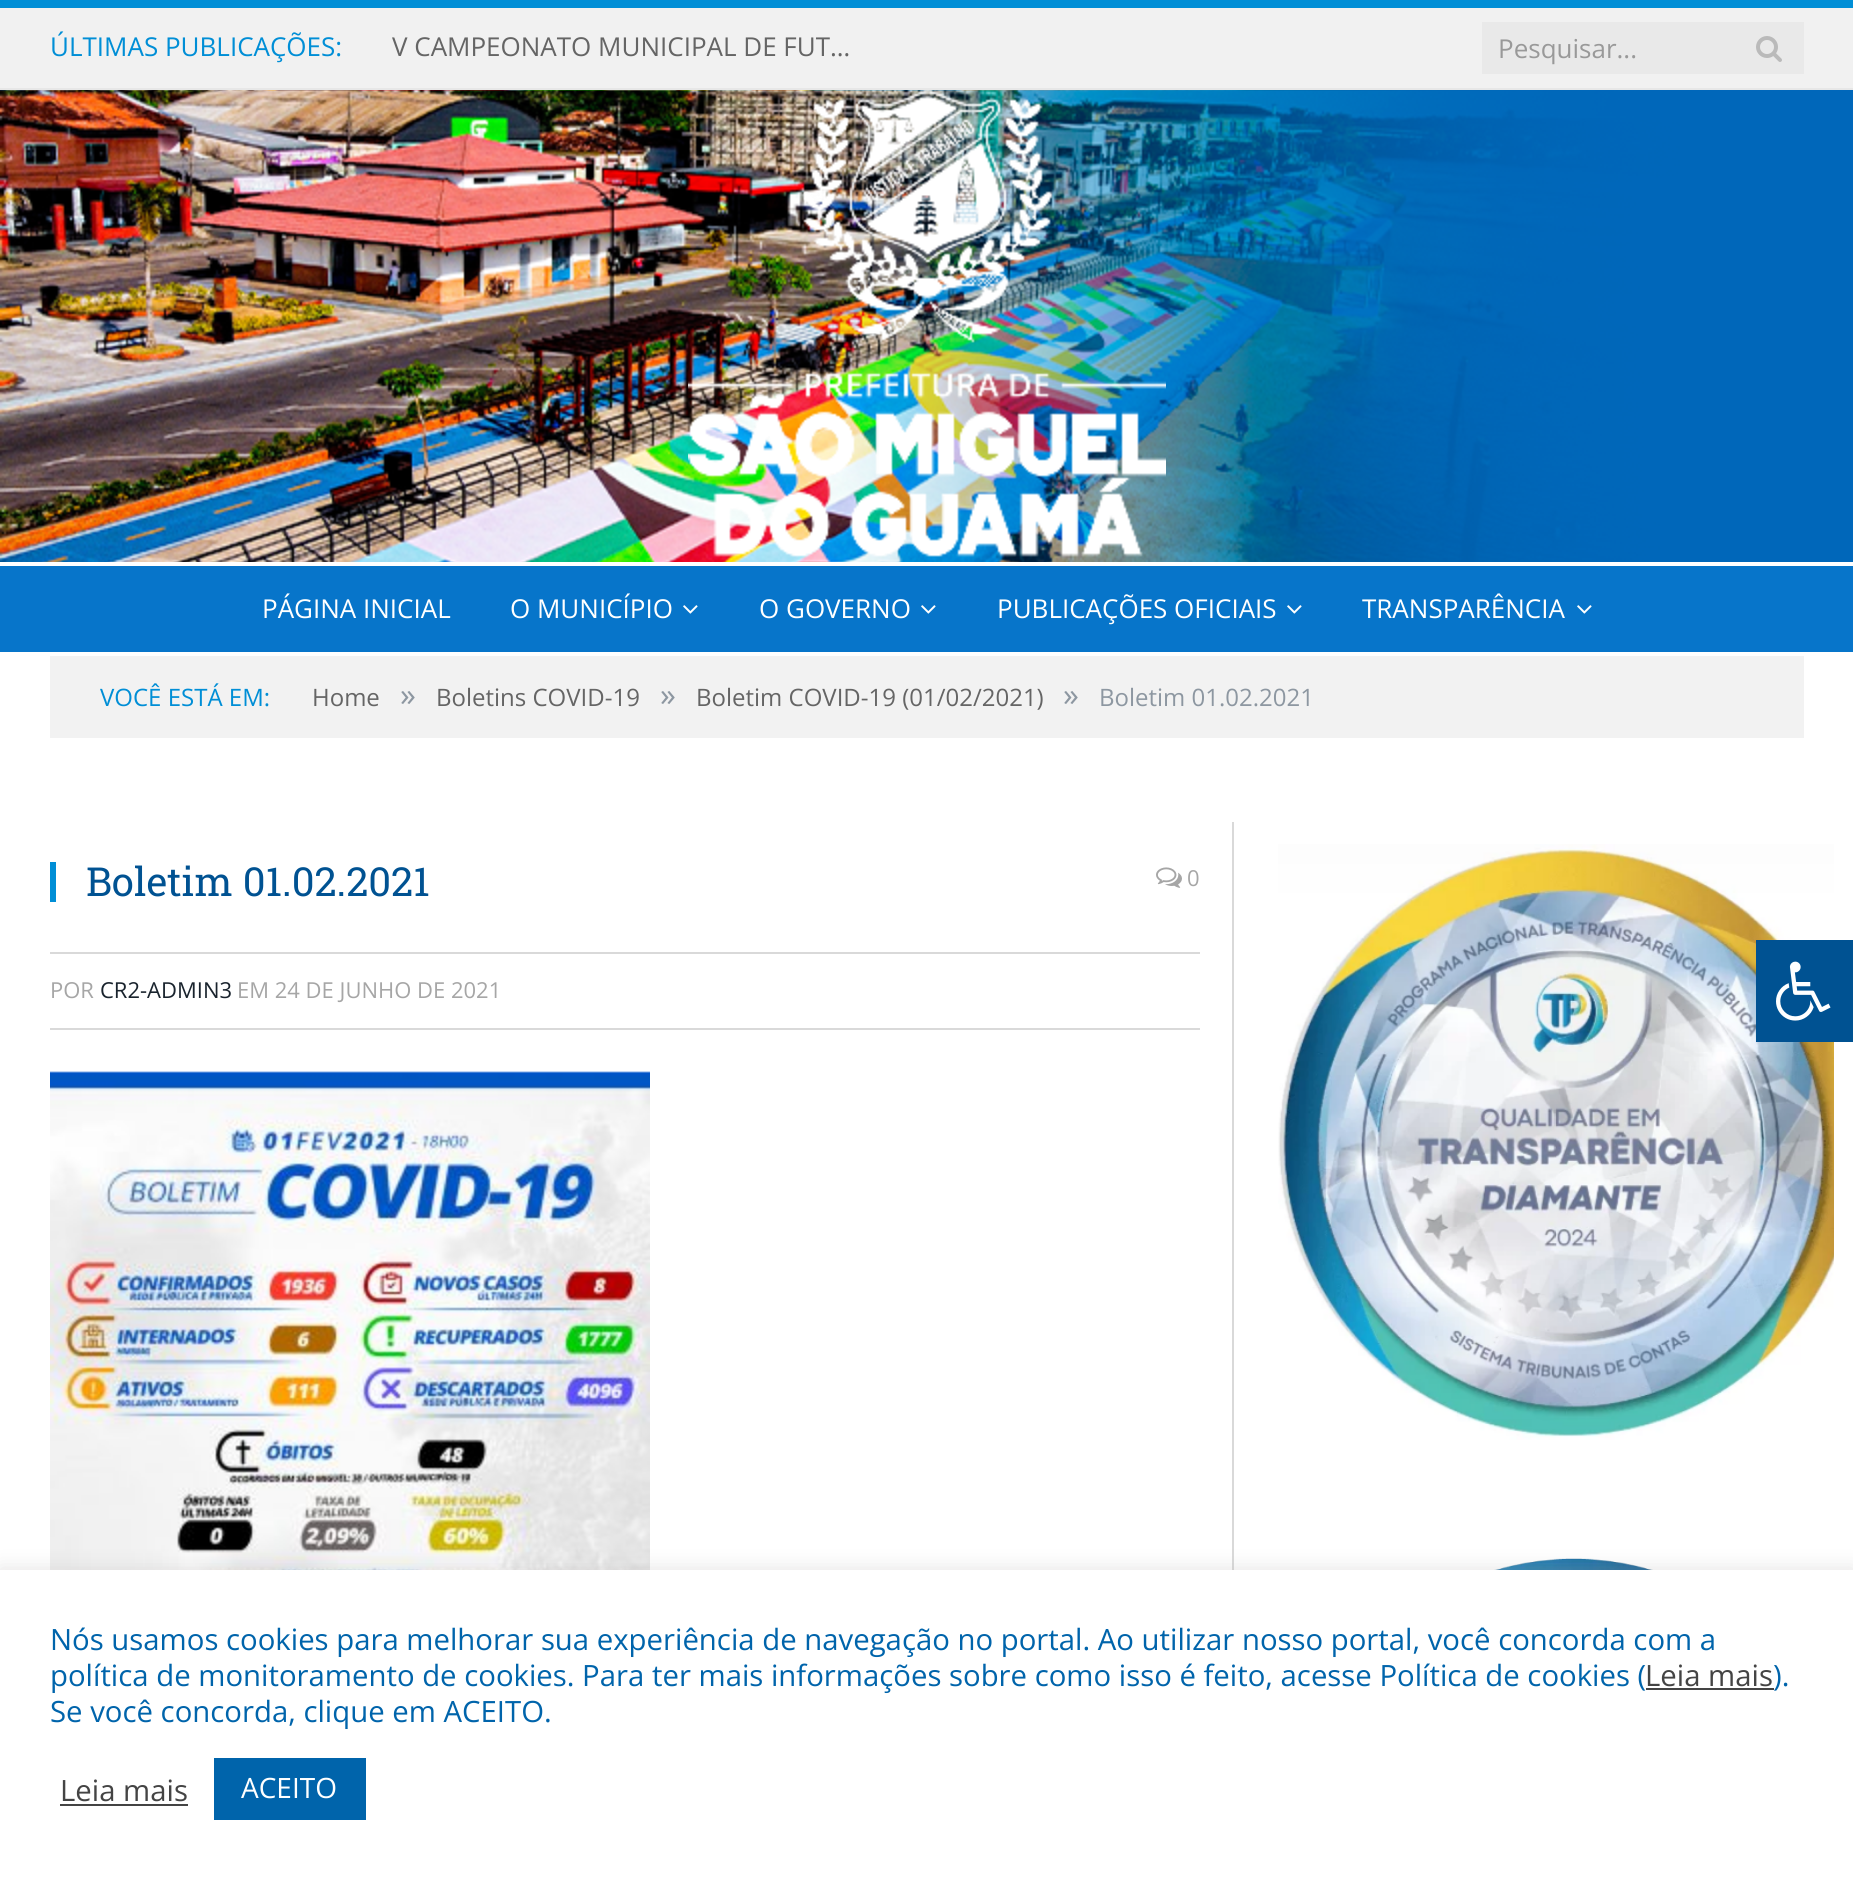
import math
import cairo


def use_color(cr, r, g, b):
  cr.set_source_rgb(r / 255, g / 255, b / 255)

def text(cr, x, y, s, family, size, color, bold=False, italic=False):
  cr.select_font_face(family, cairo.FONT_SLANT_ITALIC if italic else cairo.FONT_SLANT_NORMAL, cairo.FONT_WEIGHT_BOLD if bold else cairo.FONT_WEIGHT_NORMAL)
  cr.set_font_size(size)
  use_color(cr, *color)
  cr.move_to(x, y)
  cr.show_text(s)

def box(cr, x, y, w, h, *color):
  use_color(cr, *color)
  cr.rectangle(x, y, w, h)
  cr.fill()

def round_rect(cr, x, y, w, h, r):
  cr.new_sub_path()
  for i, (u, v) in enumerate([(x + w - r, y + h - r), (x + r, y + h - r), (x + r, y + r), (x + w - r, y + r)]):
    cr.arc(u, v, r, i * math.pi / 2, (i + 1) * math.pi / 2)
  cr.close_path()

def shadow(cr, x, y, w, h, r, blur, alpha):
  cr.push_group_with_content(cairo.CONTENT_ALPHA)
  cr.set_operator(cairo.OPERATOR_SOURCE)
  for i in range(15, -16, -2):
    e = blur * i / 6
    if min(w, h) + 2 * e > 0:
      cr.set_source_rgba(0, 0, 0, alpha * math.erfc((i - 1) / 8.5) / 2)
      round_rect(cr, x - e, y - e, w + 2 * e, h + 2 * e, max(0, min(r + e + blur * .6, min(w, h) / 2 + e)))
      cr.fill()
  cr.mask(cr.pop_group())

def picture(cr, path, x, y, w, h):
  cr.save()
  cr.set_source_surface(cairo.ImageSurface.create_from_png(path), x, y)
  cr.rectangle(x, y, w, h)
  cr.fill()
  cr.restore()

def draw(cr):
  use_color(cr, 255, 255, 255)
  cr.paint()
  box(cr, 0, 8, 1853, 80, 241, 241, 241)
  box(cr, 0, 0, 1853, 8, 0, 142, 214)
  box(cr, 0, 88, 1853, 2, 231, 231, 231)
  box(cr, 1482, 22, 322, 52, 233, 233, 233)
  picture(cr, "img_01.png", 1756, 36, 26, 26)
  picture(cr, "img_02.png", 0, 90, 1853, 472)
  picture(cr, "img_03.png", 688, 90, 478, 467)
  box(cr, 0, 566, 1853, 86, 7, 117, 202)
  picture(cr, "img_04.png", 683, 605, 15, 9)
  picture(cr, "img_04.png", 921, 605, 15, 9)
  picture(cr, "img_04.png", 1287, 605, 15, 9)
  picture(cr, "img_04.png", 1577, 605, 15, 9)
  box(cr, 50, 656, 1754, 82, 242, 242, 242)
  box(cr, 50, 862, 6, 40, 0, 142, 214)
  picture(cr, "img_05.png", 1156, 867, 26, 21)
  box(cr, 50, 952, 1150, 2, 217, 217, 217)
  box(cr, 50, 1028, 1150, 2, 217, 217, 217)
  picture(cr, "img_06.png", 50, 1071, 600, 499)
  box(cr, 1232, 822, 2, 748, 217, 217, 217)
  picture(cr, "img_07.png", 1278, 844, 556, 596)
  picture(cr, "img_08.png", 1494, 1558, 159, 12)
  box(cr, 1756, 940, 97, 102, 0, 82, 146)
  picture(cr, "img_09.png", 1776, 961, 55, 60)
  use_color(cr, 172, 171, 171)
  shadow(cr, 0, 1568, 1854, 310, 0, 10, 0.3)
  box(cr, 0, 1570, 1853, 310, 255, 255, 255)
  box(cr, 1646, 1688, 128, 2, 68, 68, 68)
  box(cr, 60, 1804, 128, 2, 68, 68, 68)
  box(cr, 214, 1758, 152, 62, 0, 100, 171)
  text(cr, 50, 56, "ÚLTIMAS PUBLICAÇÕES:", "Open Sans", 26, (0, 142, 214))
  text(cr, 392, 56, "V CAMPEONATO MUNICIPAL DE FUT…", "Open Sans", 26, (101, 101, 101))
  text(cr, 1498, 58, "Pesquisar...", "Open Sans", 26, (153, 153, 153))
  text(cr, 262, 618, "PÁGINA INICIAL", "Open Sans", 26, (255, 255, 255))
  text(cr, 510, 618, "O MUNICÍPIO", "Open Sans", 26, (255, 255, 255))
  text(cr, 759, 618, "O GOVERNO", "Open Sans", 26, (255, 255, 255))
  text(cr, 997, 618, "PUBLICAÇÕES OFICIAIS", "Open Sans", 26, (255, 255, 255))
  text(cr, 1362, 618, "TRANSPARÊNCIA", "Open Sans", 26, (255, 255, 255))
  text(cr, 100, 706, "VOCÊ ESTÁ EM:", "Open Sans", 24, (0, 142, 214))
  text(cr, 312, 706, "Home", "Open Sans", 24, (101, 101, 101))
  text(cr, 400, 706, "»", "Open Sans", 32, (141, 151, 161))
  text(cr, 436, 706, "Boletins COVID-19", "Open Sans", 24, (101, 101, 101))
  text(cr, 660, 706, "»", "Open Sans", 32, (141, 151, 161))
  text(cr, 696, 706, "Boletim COVID-19 (01/02/2021)", "Open Sans", 24, (101, 101, 101))
  text(cr, 1063, 706, "»", "Open Sans", 32, (141, 151, 161))
  text(cr, 1099, 706, "Boletim 01.02.2021", "Open Sans", 24, (141, 151, 161))
  text(cr, 86, 896, "Boletim 01.02.2021", "Roboto Slab", 40, (0, 82, 146))
  text(cr, 1187, 886, "0", "Open Sans", 22, (166, 166, 166))
  text(cr, 50, 998, "POR", "Open Sans", 22, (166, 166, 166))
  text(cr, 100, 998, "CR2-ADMIN3", "Open Sans", 22, (25, 35, 45))
  text(cr, 237, 998, "EM 24 DE JUNHO DE 2021", "Open Sans", 22, (166, 166, 166))
  text(cr, 50, 1650, "Nós usamos cookies para melhorar sua experiência de navegação no portal. Ao utilizar nosso portal, você concorda com a", "Open Sans", 29.33, (0, 100, 171))
  text(cr, 50, 1686, "política de monitoramento de cookies. Para ter mais informações sobre como isso é feito, acesse Política de cookies (", "Open Sans", 29.33, (0, 100, 171))
  text(cr, 1645, 1686, "Leia mais", "Open Sans", 29.33, (68, 68, 68))
  text(cr, 1773, 1686, ").", "Open Sans", 29.33, (0, 100, 171))
  text(cr, 50, 1722, "Se você concorda, clique em ACEITO.", "Open Sans", 29.33, (0, 100, 171))
  text(cr, 60, 1801, "Leia mais", "Open Sans", 29.33, (68, 68, 68))
  text(cr, 241, 1798, "ACEITO", "Open Sans", 28, (255, 255, 255))


surface = cairo.ImageSurface(cairo.FORMAT_RGB24, 1853, 1880)
cr = cairo.Context(surface)
options = cairo.FontOptions()
options.set_hint_metrics(cairo.HINT_METRICS_OFF)
options.set_hint_style(cairo.HINT_STYLE_NONE)
cr.set_font_options(options)
cr.set_miter_limit(4)
draw(cr)
surface.write_to_png("out.png")
